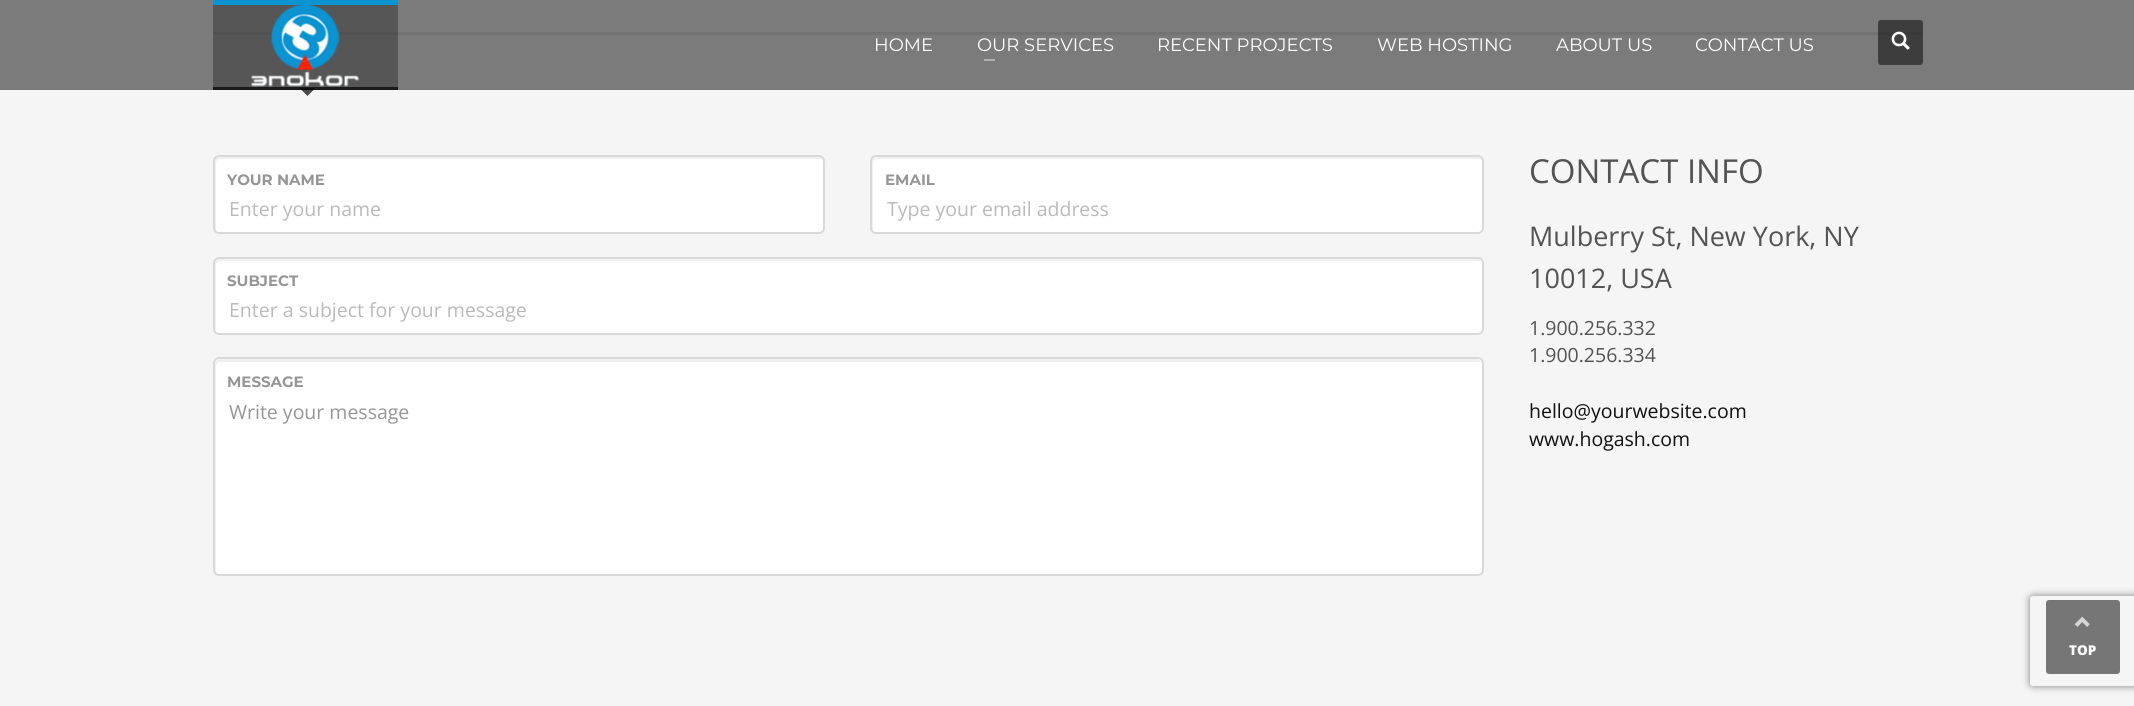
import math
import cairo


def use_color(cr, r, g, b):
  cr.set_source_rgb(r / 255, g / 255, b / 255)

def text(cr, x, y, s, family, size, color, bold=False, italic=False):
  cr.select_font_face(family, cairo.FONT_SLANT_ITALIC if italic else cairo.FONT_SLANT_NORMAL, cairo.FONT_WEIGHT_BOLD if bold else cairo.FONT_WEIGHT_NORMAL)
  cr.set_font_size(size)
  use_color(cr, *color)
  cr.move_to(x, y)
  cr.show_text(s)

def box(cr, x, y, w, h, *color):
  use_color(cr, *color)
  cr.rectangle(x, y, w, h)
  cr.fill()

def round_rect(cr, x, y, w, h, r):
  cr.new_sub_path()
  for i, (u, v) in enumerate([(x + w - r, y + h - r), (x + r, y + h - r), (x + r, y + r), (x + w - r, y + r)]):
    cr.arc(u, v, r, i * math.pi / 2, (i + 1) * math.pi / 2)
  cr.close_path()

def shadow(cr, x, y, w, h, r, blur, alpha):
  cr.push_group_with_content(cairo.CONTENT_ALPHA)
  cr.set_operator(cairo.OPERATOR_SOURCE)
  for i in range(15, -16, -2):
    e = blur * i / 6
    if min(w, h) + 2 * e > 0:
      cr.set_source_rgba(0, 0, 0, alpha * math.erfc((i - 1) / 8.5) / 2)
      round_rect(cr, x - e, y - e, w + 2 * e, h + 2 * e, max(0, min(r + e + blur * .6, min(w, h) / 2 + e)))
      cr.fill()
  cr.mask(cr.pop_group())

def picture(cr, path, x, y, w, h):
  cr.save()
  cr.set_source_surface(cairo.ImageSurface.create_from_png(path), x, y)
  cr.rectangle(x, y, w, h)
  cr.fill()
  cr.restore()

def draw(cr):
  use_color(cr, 245, 245, 245)
  cr.paint()
  box(cr, 0, 0, 2134, 90, 123, 123, 123)
  box(cr, 213, 5, 185, 82, 86, 86, 86)
  box(cr, 213, 0, 185, 5, 12, 147, 210)
  box(cr, 213, 87, 185, 3, 26, 26, 26)
  box(cr, 213, 32, 185, 3, 81, 81, 81)
  picture(cr, "img_01.png", 250, 5, 110, 82)
  cr.set_source_rgba(0, 0, 0, 0.7)
  cr.new_path()
  cr.move_to(300, 88.5)
  cr.line_to(315, 88.5)
  cr.line_to(307.5, 96)
  cr.close_path()
  cr.fill()
  box(cr, 984, 59, 11, 2, 176, 176, 176)
  box(cr, 398, 32, 1525, 3, 115, 115, 115)
  cr.set_source_rgba(0, 0, 0, 0.5)
  round_rect(cr, 1878, 20, 45, 45, 3)
  cr.fill()
  picture(cr, "img_02.png", 1891, 31, 19, 19)
  use_color(cr, 255, 255, 255)
  round_rect(cr, 213, 155, 612, 79, 6)
  cr.fill()
  use_color(cr, 240, 240, 240)
  cr.new_path()
  cr.move_to(220, 159)
  cr.line_to(820, 159)
  cr.curve_to(822, 159, 823, 160, 824, 161)
  cr.curve_to(824, 158, 822, 156, 819, 156)
  cr.line_to(220, 156)
  cr.curve_to(217, 156, 215, 158, 215, 161)
  cr.line_to(215, 228)
  cr.curve_to(215, 229, 215, 230, 216, 231)
  cr.line_to(216, 164)
  cr.curve_to(216, 161, 218, 159, 220, 159)
  cr.close_path()
  cr.fill()
  round_rect(cr, 214, 156, 610, 77, 5)
  use_color(cr, 217, 217, 217)
  cr.stroke()
  use_color(cr, 255, 255, 255)
  round_rect(cr, 870, 155, 614, 79, 6)
  cr.fill()
  use_color(cr, 240, 240, 240)
  cr.new_path()
  cr.move_to(878, 159)
  cr.line_to(1479, 159)
  cr.line_to(1482, 160)
  cr.curve_to(1481, 158, 1479, 156, 1477, 156)
  cr.line_to(877, 156)
  cr.curve_to(874, 156, 872, 158, 872, 161)
  cr.line_to(872, 228)
  cr.curve_to(872, 229, 872, 230, 873, 231)
  cr.line_to(873, 164)
  cr.curve_to(873, 161, 875, 159, 878, 159)
  cr.close_path()
  cr.fill()
  round_rect(cr, 871, 156, 612, 77, 5)
  use_color(cr, 217, 217, 217)
  cr.stroke()
  use_color(cr, 255, 255, 255)
  round_rect(cr, 213, 257, 1271, 78, 6)
  cr.fill()
  use_color(cr, 240, 240, 240)
  cr.new_path()
  cr.move_to(220, 261)
  cr.line_to(1479, 261)
  cr.line_to(1482, 262)
  cr.curve_to(1481, 260, 1479, 258, 1477, 258)
  cr.line_to(220, 258)
  cr.curve_to(217, 258, 215, 260, 215, 263)
  cr.line_to(215, 328)
  cr.curve_to(215, 329, 215, 330, 216, 331)
  cr.line_to(216, 266)
  cr.curve_to(216, 263, 218, 261, 220, 261)
  cr.close_path()
  cr.fill()
  round_rect(cr, 214, 258, 1269, 76, 5)
  use_color(cr, 217, 217, 217)
  cr.stroke()
  use_color(cr, 255, 255, 255)
  round_rect(cr, 213, 357, 1271, 219, 6)
  cr.fill()
  use_color(cr, 240, 240, 240)
  cr.new_path()
  cr.move_to(220, 362)
  cr.line_to(1479, 362)
  cr.line_to(1482, 363)
  cr.curve_to(1481, 361, 1479, 359, 1477, 359)
  cr.line_to(220, 359)
  cr.curve_to(217, 359, 215, 361, 215, 364)
  cr.line_to(215, 570)
  cr.curve_to(215, 571, 215, 572, 216, 573)
  cr.line_to(216, 366)
  cr.curve_to(216, 364, 218, 362, 220, 362)
  cr.close_path()
  cr.fill()
  round_rect(cr, 214, 358, 1269, 217, 5)
  use_color(cr, 217, 217, 217)
  cr.stroke()
  cr.save()
  cr.set_fill_rule(cairo.FILL_RULE_EVEN_ODD)
  cr.new_path()
  cr.move_to(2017, 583)
  cr.line_to(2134, 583)
  cr.line_to(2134, 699)
  cr.line_to(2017, 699)
  cr.close_path()
  cr.move_to(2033, 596)
  cr.line_to(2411, 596)
  cr.curve_to(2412.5, 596, 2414, 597.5, 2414, 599)
  cr.line_to(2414, 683)
  cr.curve_to(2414, 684.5, 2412.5, 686, 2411, 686)
  cr.line_to(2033, 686)
  cr.curve_to(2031.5, 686, 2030, 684.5, 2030, 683)
  cr.line_to(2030, 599)
  cr.curve_to(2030, 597.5, 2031.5, 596, 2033, 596)
  cr.close_path()
  cr.clip()
  use_color(cr, 128, 128, 128)
  shadow(cr, 2030, 596, 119, 90, 3, 4, 1)
  cr.restore()
  use_color(cr, 118, 118, 118)
  round_rect(cr, 2046, 600, 74, 74, 3)
  cr.fill()
  picture(cr, "img_03.png", 2074, 616, 16, 11)
  text(cr, 874, 51, "HOME", "Montserrat", 18, (255, 255, 255))
  text(cr, 977, 51, "OUR SERVICES", "Montserrat", 18, (255, 255, 255))
  text(cr, 1157, 51, "RECENT PROJECTS", "Montserrat", 18, (255, 255, 255))
  text(cr, 1377, 51, "WEB HOSTING", "Montserrat", 18, (255, 255, 255))
  text(cr, 1556, 51, "ABOUT US", "Montserrat", 18, (255, 255, 255))
  text(cr, 1695, 51, "CONTACT US", "Montserrat", 18, (255, 255, 255))
  text(cr, 227, 185, "YOUR NAME", "Montserrat", 15, (150, 150, 150), bold=True)
  text(cr, 229, 216, "Enter your name", "Open Sans", 19.5, (186, 186, 186))
  text(cr, 885, 185, "EMAIL", "Montserrat", 15, (150, 150, 150), bold=True)
  text(cr, 887, 216, "Type your email address", "Open Sans", 19.5, (186, 186, 186))
  text(cr, 227, 286, "SUBJECT", "Montserrat", 15, (150, 150, 150), bold=True)
  text(cr, 229, 317, "Enter a subject for your message", "Open Sans", 19.5, (186, 186, 186))
  text(cr, 227, 387, "MESSAGE", "Montserrat", 15, (150, 150, 150), bold=True)
  text(cr, 229, 419, "Write your message", "Open Sans", 19.5, (150, 150, 150))
  text(cr, 1529, 183, "CONTACT INFO", "Open Sans", 33, (83, 83, 83))
  text(cr, 1529, 246, "Mulberry St, New York, NY", "Open Sans", 27, (83, 83, 83))
  text(cr, 1529, 288, "10012, USA", "Open Sans", 27, (83, 83, 83))
  text(cr, 1529, 335, "1.900.256.332", "Open Sans", 19.5, (83, 83, 83))
  text(cr, 1529, 362, "1.900.256.334", "Open Sans", 19.5, (83, 83, 83))
  text(cr, 1529, 418, "hello@yourwebsite.com", "Open Sans", 19.5, (17, 17, 17))
  text(cr, 1529, 446, "www.hogash.com", "Open Sans", 19.5, (17, 17, 17))
  text(cr, 2069, 655, "TOP", "Open Sans ExtraBold", 13.5, (255, 255, 255))


surface = cairo.ImageSurface(cairo.FORMAT_RGB24, 2134, 706)
cr = cairo.Context(surface)
options = cairo.FontOptions()
options.set_hint_metrics(cairo.HINT_METRICS_OFF)
options.set_hint_style(cairo.HINT_STYLE_NONE)
cr.set_font_options(options)
cr.set_miter_limit(4)
draw(cr)
surface.write_to_png("out.png")
